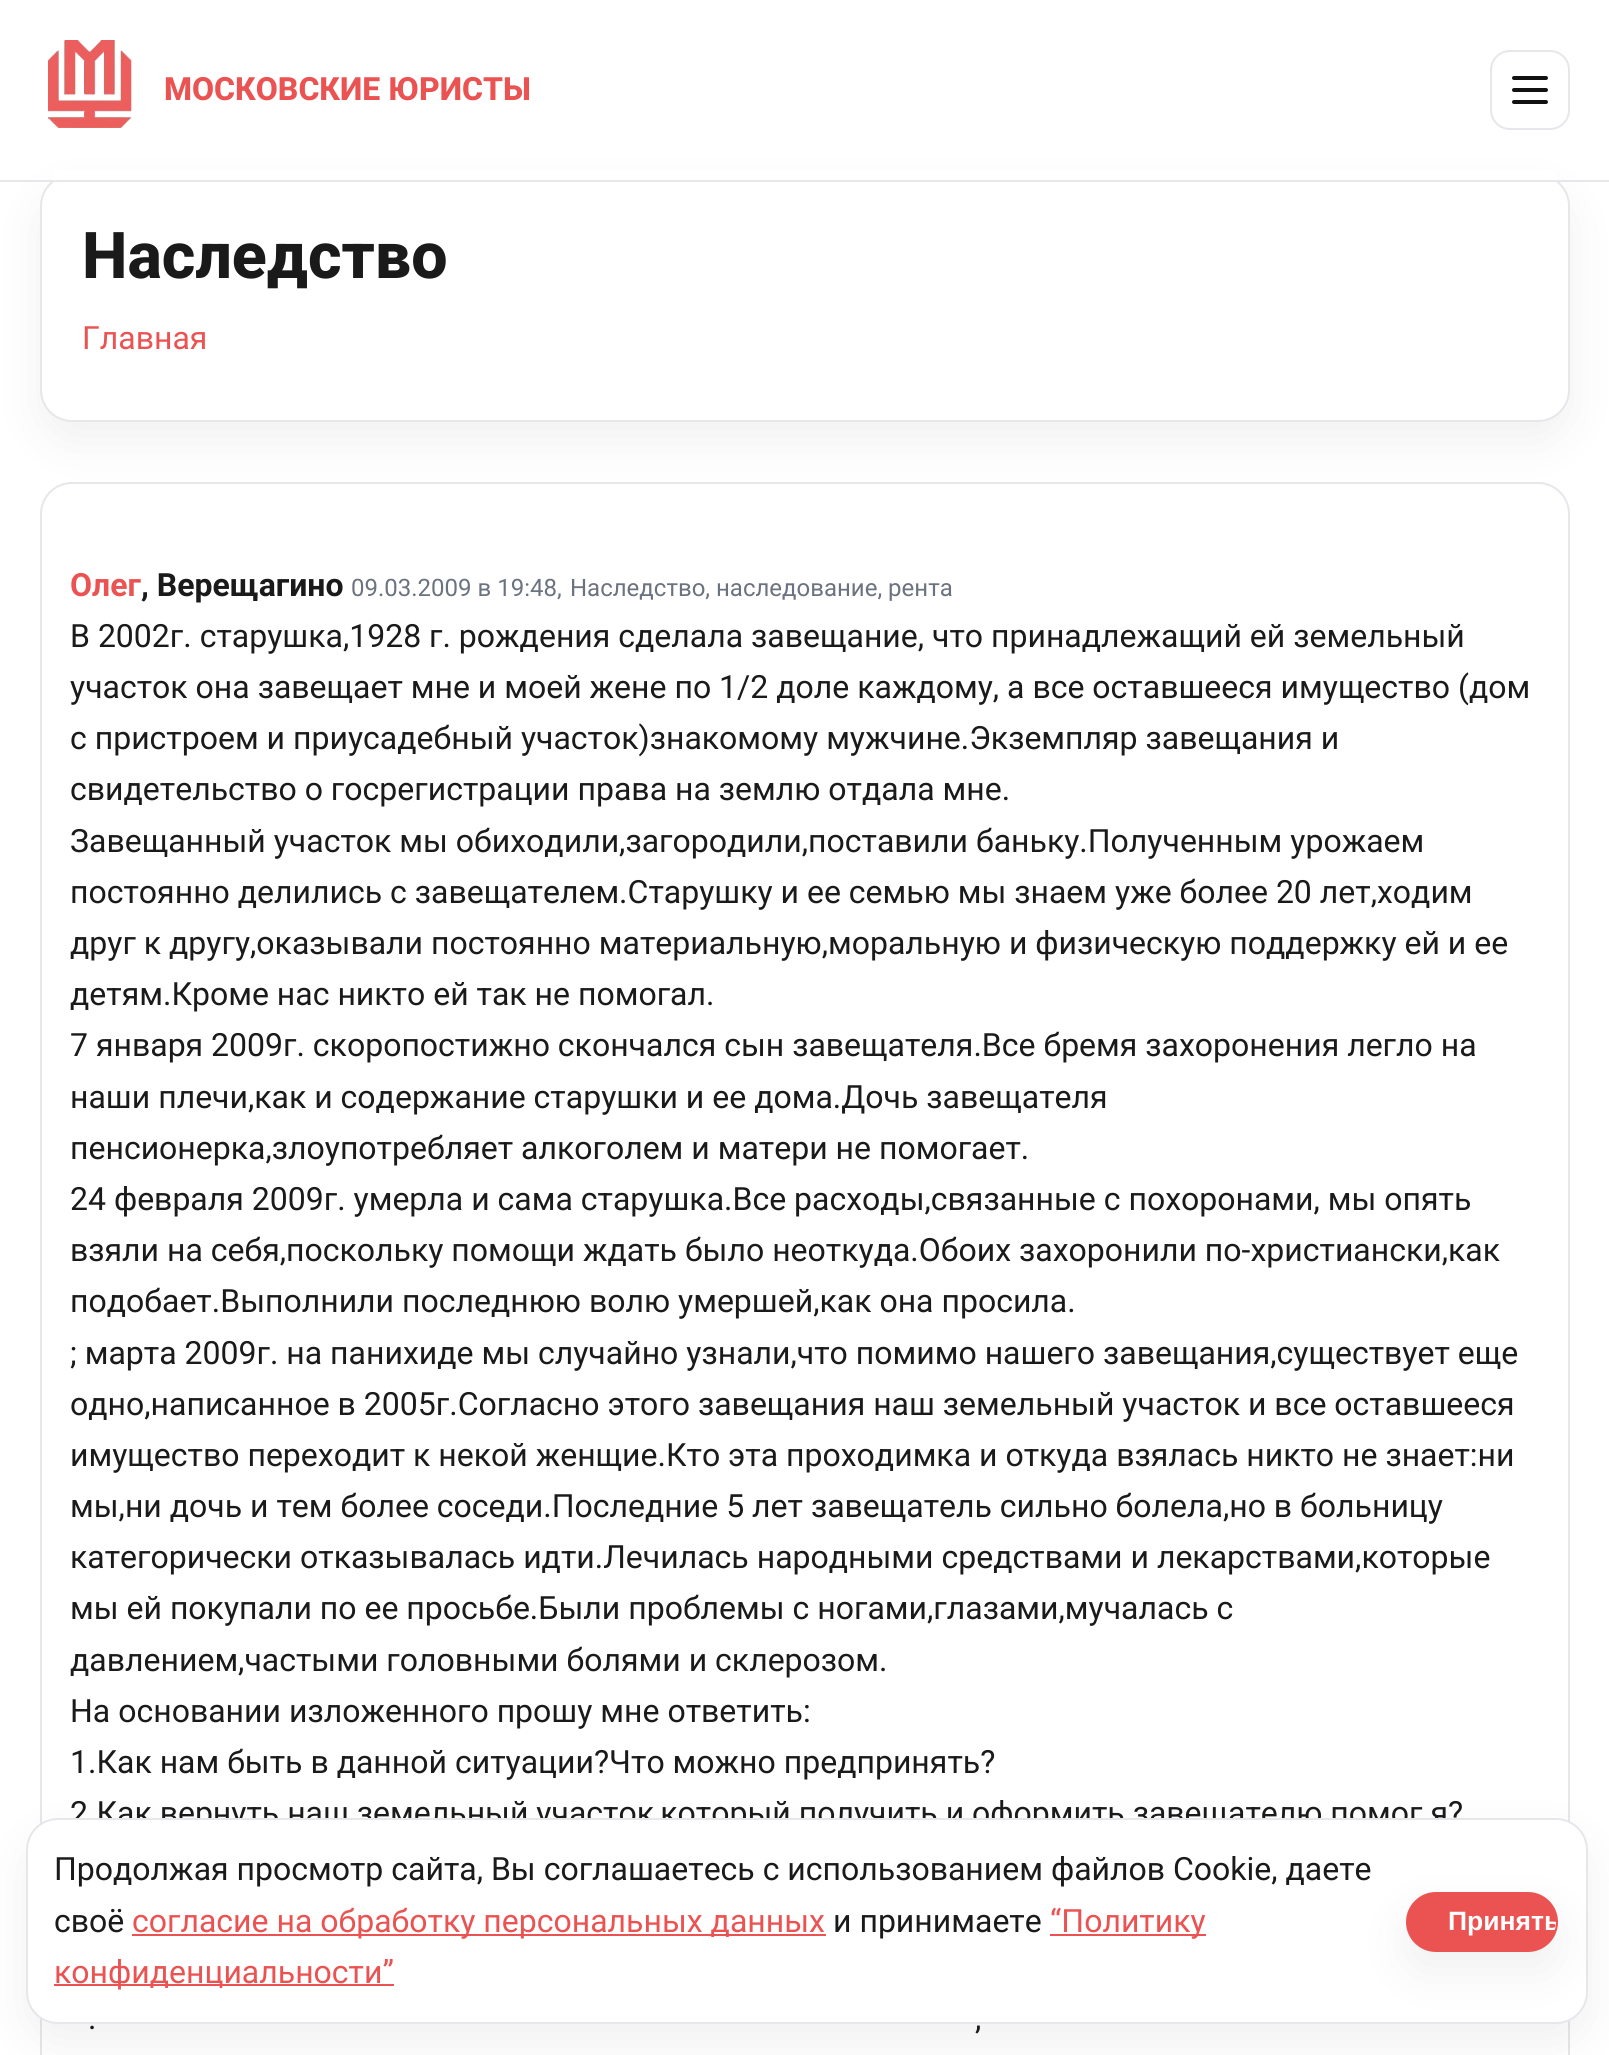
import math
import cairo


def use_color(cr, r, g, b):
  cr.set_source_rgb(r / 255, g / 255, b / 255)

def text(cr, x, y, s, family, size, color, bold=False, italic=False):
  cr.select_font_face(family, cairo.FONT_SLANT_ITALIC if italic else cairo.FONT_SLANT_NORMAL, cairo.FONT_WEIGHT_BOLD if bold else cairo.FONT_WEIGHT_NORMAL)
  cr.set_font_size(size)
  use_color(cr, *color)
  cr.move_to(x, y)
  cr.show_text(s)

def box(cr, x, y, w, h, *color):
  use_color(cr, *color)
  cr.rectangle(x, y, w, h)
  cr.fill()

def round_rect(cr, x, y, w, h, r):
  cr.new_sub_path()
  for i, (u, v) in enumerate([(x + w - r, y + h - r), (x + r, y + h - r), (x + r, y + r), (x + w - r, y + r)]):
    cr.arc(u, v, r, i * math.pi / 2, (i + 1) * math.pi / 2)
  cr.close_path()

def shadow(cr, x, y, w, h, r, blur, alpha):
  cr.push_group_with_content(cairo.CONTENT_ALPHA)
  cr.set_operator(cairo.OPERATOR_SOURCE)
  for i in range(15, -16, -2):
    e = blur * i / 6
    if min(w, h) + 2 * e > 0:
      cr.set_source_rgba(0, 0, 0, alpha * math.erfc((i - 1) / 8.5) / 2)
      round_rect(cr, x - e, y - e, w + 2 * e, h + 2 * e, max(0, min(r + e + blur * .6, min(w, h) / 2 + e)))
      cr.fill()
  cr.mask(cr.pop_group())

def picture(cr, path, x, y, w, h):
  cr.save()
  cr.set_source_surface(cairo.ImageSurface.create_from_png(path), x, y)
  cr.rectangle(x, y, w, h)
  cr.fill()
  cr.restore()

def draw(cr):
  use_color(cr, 255, 255, 255)
  cr.paint()
  use_color(cr, 0, 0, 0)
  shadow(cr, 40, 194, 1530, 248, 32, 25, 0.06)
  use_color(cr, 255, 255, 255)
  round_rect(cr, 41, 175, 1528, 246, 31)
  cr.fill_preserve()
  use_color(cr, 229, 231, 235)
  cr.stroke()
  box(cr, 53, 170, 1504, 10, 255, 255, 255)
  box(cr, 0, 180, 1609, 2, 229, 231, 235)
  picture(cr, "img_01.png", 48, 40, 84, 88)
  round_rect(cr, 1491, 51, 78, 78, 19)
  cr.stroke()
  use_color(cr, 17, 17, 17)
  round_rect(cr, 1512, 88, 36, 4, 2)
  cr.fill()
  round_rect(cr, 1512, 76, 36, 4, 2)
  cr.fill()
  round_rect(cr, 1512, 100, 36, 4, 2)
  cr.fill()
  round_rect(cr, 41, 483, 1528, 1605, 31)
  use_color(cr, 229, 231, 235)
  cr.stroke()
  use_color(cr, 0, 0, 0)
  shadow(cr, 26, 1838, 1562, 206, 32, 25, 0.06)
  text(cr, 164, 100, "МОСКОВСКИЕ ЮРИСТЫ", "Roboto ExtraBold", 32, (235, 83, 83))
  text(cr, 82, 278, "Наследство", "Roboto ExtraBold", 64.5, (26, 26, 26))
  text(cr, 82, 349, "Главная", "Roboto", 32, (235, 83, 83))
  text(cr, 70, 596, "Олег", "Roboto", 32, (235, 83, 83), bold=True)
  text(cr, 141, 596, ", Верещагино", "Roboto", 32, (26, 26, 26), bold=True)
  text(cr, 351, 596, "09.03.2009 в 19:48,", "Roboto", 24, (107, 114, 128))
  text(cr, 570, 596, "Наследство, наследование, рента", "Roboto", 24, (107, 114, 128))
  text(cr, 70, 647, "В 2002г. старушка,1928 г. рождения сделала завещание, что принадлежащий ей земельный", "Roboto", 32, (26, 26, 26))
  text(cr, 70, 698, "участок она завещает мне и моей жене по 1/2 доле каждому, а все оставшееся имущество (дом", "Roboto", 32, (26, 26, 26))
  text(cr, 70, 749, "с пристроем и приусадебный участок)знакомому мужчине.Экземпляр завещания и", "Roboto", 32, (26, 26, 26))
  text(cr, 70, 800, "свидетельство о госрегистрации права на землю отдала мне.", "Roboto", 32, (26, 26, 26))
  text(cr, 70, 852, "Завещанный участок мы обиходили,загородили,поставили баньку.Полученным урожаем", "Roboto", 32, (26, 26, 26))
  text(cr, 70, 903, "постоянно делились с завещателем.Старушку и ее семью мы знаем уже более 20 лет,ходим", "Roboto", 32, (26, 26, 26))
  text(cr, 70, 954, "друг к другу,оказывали постоянно материальную,моральную и физическую поддержку ей и ее", "Roboto", 32, (26, 26, 26))
  text(cr, 70, 1005, "детям.Кроме нас никто ей так не помогал.", "Roboto", 32, (26, 26, 26))
  text(cr, 70, 1056, "7 января 2009г. скоропостижно скончался сын завещателя.Все бремя захоронения легло на", "Roboto", 32, (26, 26, 26))
  text(cr, 70, 1108, "наши плечи,как и содержание старушки и ее дома.Дочь завещателя", "Roboto", 32, (26, 26, 26))
  text(cr, 70, 1159, "пенсионерка,злоупотребляет алкоголем и матери не помогает.", "Roboto", 32, (26, 26, 26))
  text(cr, 70, 1210, "24 февраля 2009г. умерла и сама старушка.Все расходы,связанные с похоронами, мы опять", "Roboto", 32, (26, 26, 26))
  text(cr, 70, 1261, "взяли на себя,поскольку помощи ждать было неоткуда.Обоих захоронили по-христиански,как", "Roboto", 32, (26, 26, 26))
  text(cr, 70, 1312, "подобает.Выполнили последнюю волю умершей,как она просила.", "Roboto", 32, (26, 26, 26))
  text(cr, 70, 1364, "; марта 2009г. на панихиде мы случайно узнали,что помимо нашего завещания,существует еще", "Roboto", 32, (26, 26, 26))
  text(cr, 70, 1415, "одно,написанное в 2005г.Согласно этого завещания наш земельный участок и все оставшееся", "Roboto", 32, (26, 26, 26))
  text(cr, 70, 1466, "имущество переходит к некой женщие.Кто эта проходимка и откуда взялась никто не знает:ни", "Roboto", 32, (26, 26, 26))
  text(cr, 70, 1517, "мы,ни дочь и тем более соседи.Последние 5 лет завещатель сильно болела,но в больницу", "Roboto", 32, (26, 26, 26))
  text(cr, 70, 1568, "категорически отказывалась идти.Лечилась народными средствами и лекарствами,которые", "Roboto", 32, (26, 26, 26))
  text(cr, 70, 1619, "мы ей покупали по ее просьбе.Были проблемы с ногами,глазами,мучалась с", "Roboto", 32, (26, 26, 26))
  text(cr, 70, 1671, "давлением,частыми головными болями и склерозом.", "Roboto", 32, (26, 26, 26))
  text(cr, 70, 1722, "На основании изложенного прошу мне ответить:", "Roboto", 32, (26, 26, 26))
  text(cr, 70, 1773, "1.Как нам быть в данной ситуации?Что можно предпринять?", "Roboto", 32, (26, 26, 26))
  text(cr, 70, 1824, "2.Как вернуть наш земельный участок,который получить и оформить завещателю помог я?", "Roboto", 32, (26, 26, 26))
  text(cr, 88, 2029, ".", "Roboto", 32, (26, 26, 26))
  text(cr, 975, 2029, ",", "Roboto", 32, (26, 26, 26))
  use_color(cr, 255, 255, 255)
  round_rect(cr, 27, 1819, 1560, 204, 31)
  cr.fill_preserve()
  use_color(cr, 229, 231, 235)
  cr.stroke()
  text(cr, 54, 1880, "Продолжая просмотр сайта, Вы соглашаетесь с использованием файлов Cookie, даете", "Roboto", 32, (26, 26, 26))
  text(cr, 54, 1932, "своё", "Roboto", 32, (26, 26, 26))
  box(cr, 132, 1934, 694, 2, 235, 83, 83)
  text(cr, 132, 1932, "согласие на обработку персональных данных", "Roboto", 32, (235, 83, 83))
  text(cr, 833, 1932, "и принимаете", "Roboto", 32, (26, 26, 26))
  box(cr, 1050, 1934, 156, 2, 235, 83, 83)
  text(cr, 1050, 1932, "“Политику", "Roboto", 32, (235, 83, 83))
  box(cr, 54, 1984, 340, 2, 235, 83, 83)
  text(cr, 54, 1983, "конфиденциальности”", "Roboto", 32, (235, 83, 83))
  use_color(cr, 0, 0, 0)
  shadow(cr, 1406, 1912, 152, 60, 30, 25, 0.06)
  use_color(cr, 235, 83, 83)
  round_rect(cr, 1407, 1893, 150, 58, 29)
  cr.fill_preserve()
  cr.stroke()
  cr.save()
  round_rect(cr, 1408, 1894, 148, 56, 28)
  cr.clip()
  text(cr, 1448, 1930, "Принять", "Liberation Sans", 26.5, (255, 255, 255), bold=True)
  cr.restore()


surface = cairo.ImageSurface(cairo.FORMAT_RGB24, 1609, 2055)
cr = cairo.Context(surface)
options = cairo.FontOptions()
options.set_hint_metrics(cairo.HINT_METRICS_OFF)
options.set_hint_style(cairo.HINT_STYLE_NONE)
cr.set_font_options(options)
cr.set_miter_limit(4)
draw(cr)
surface.write_to_png("out.png")
